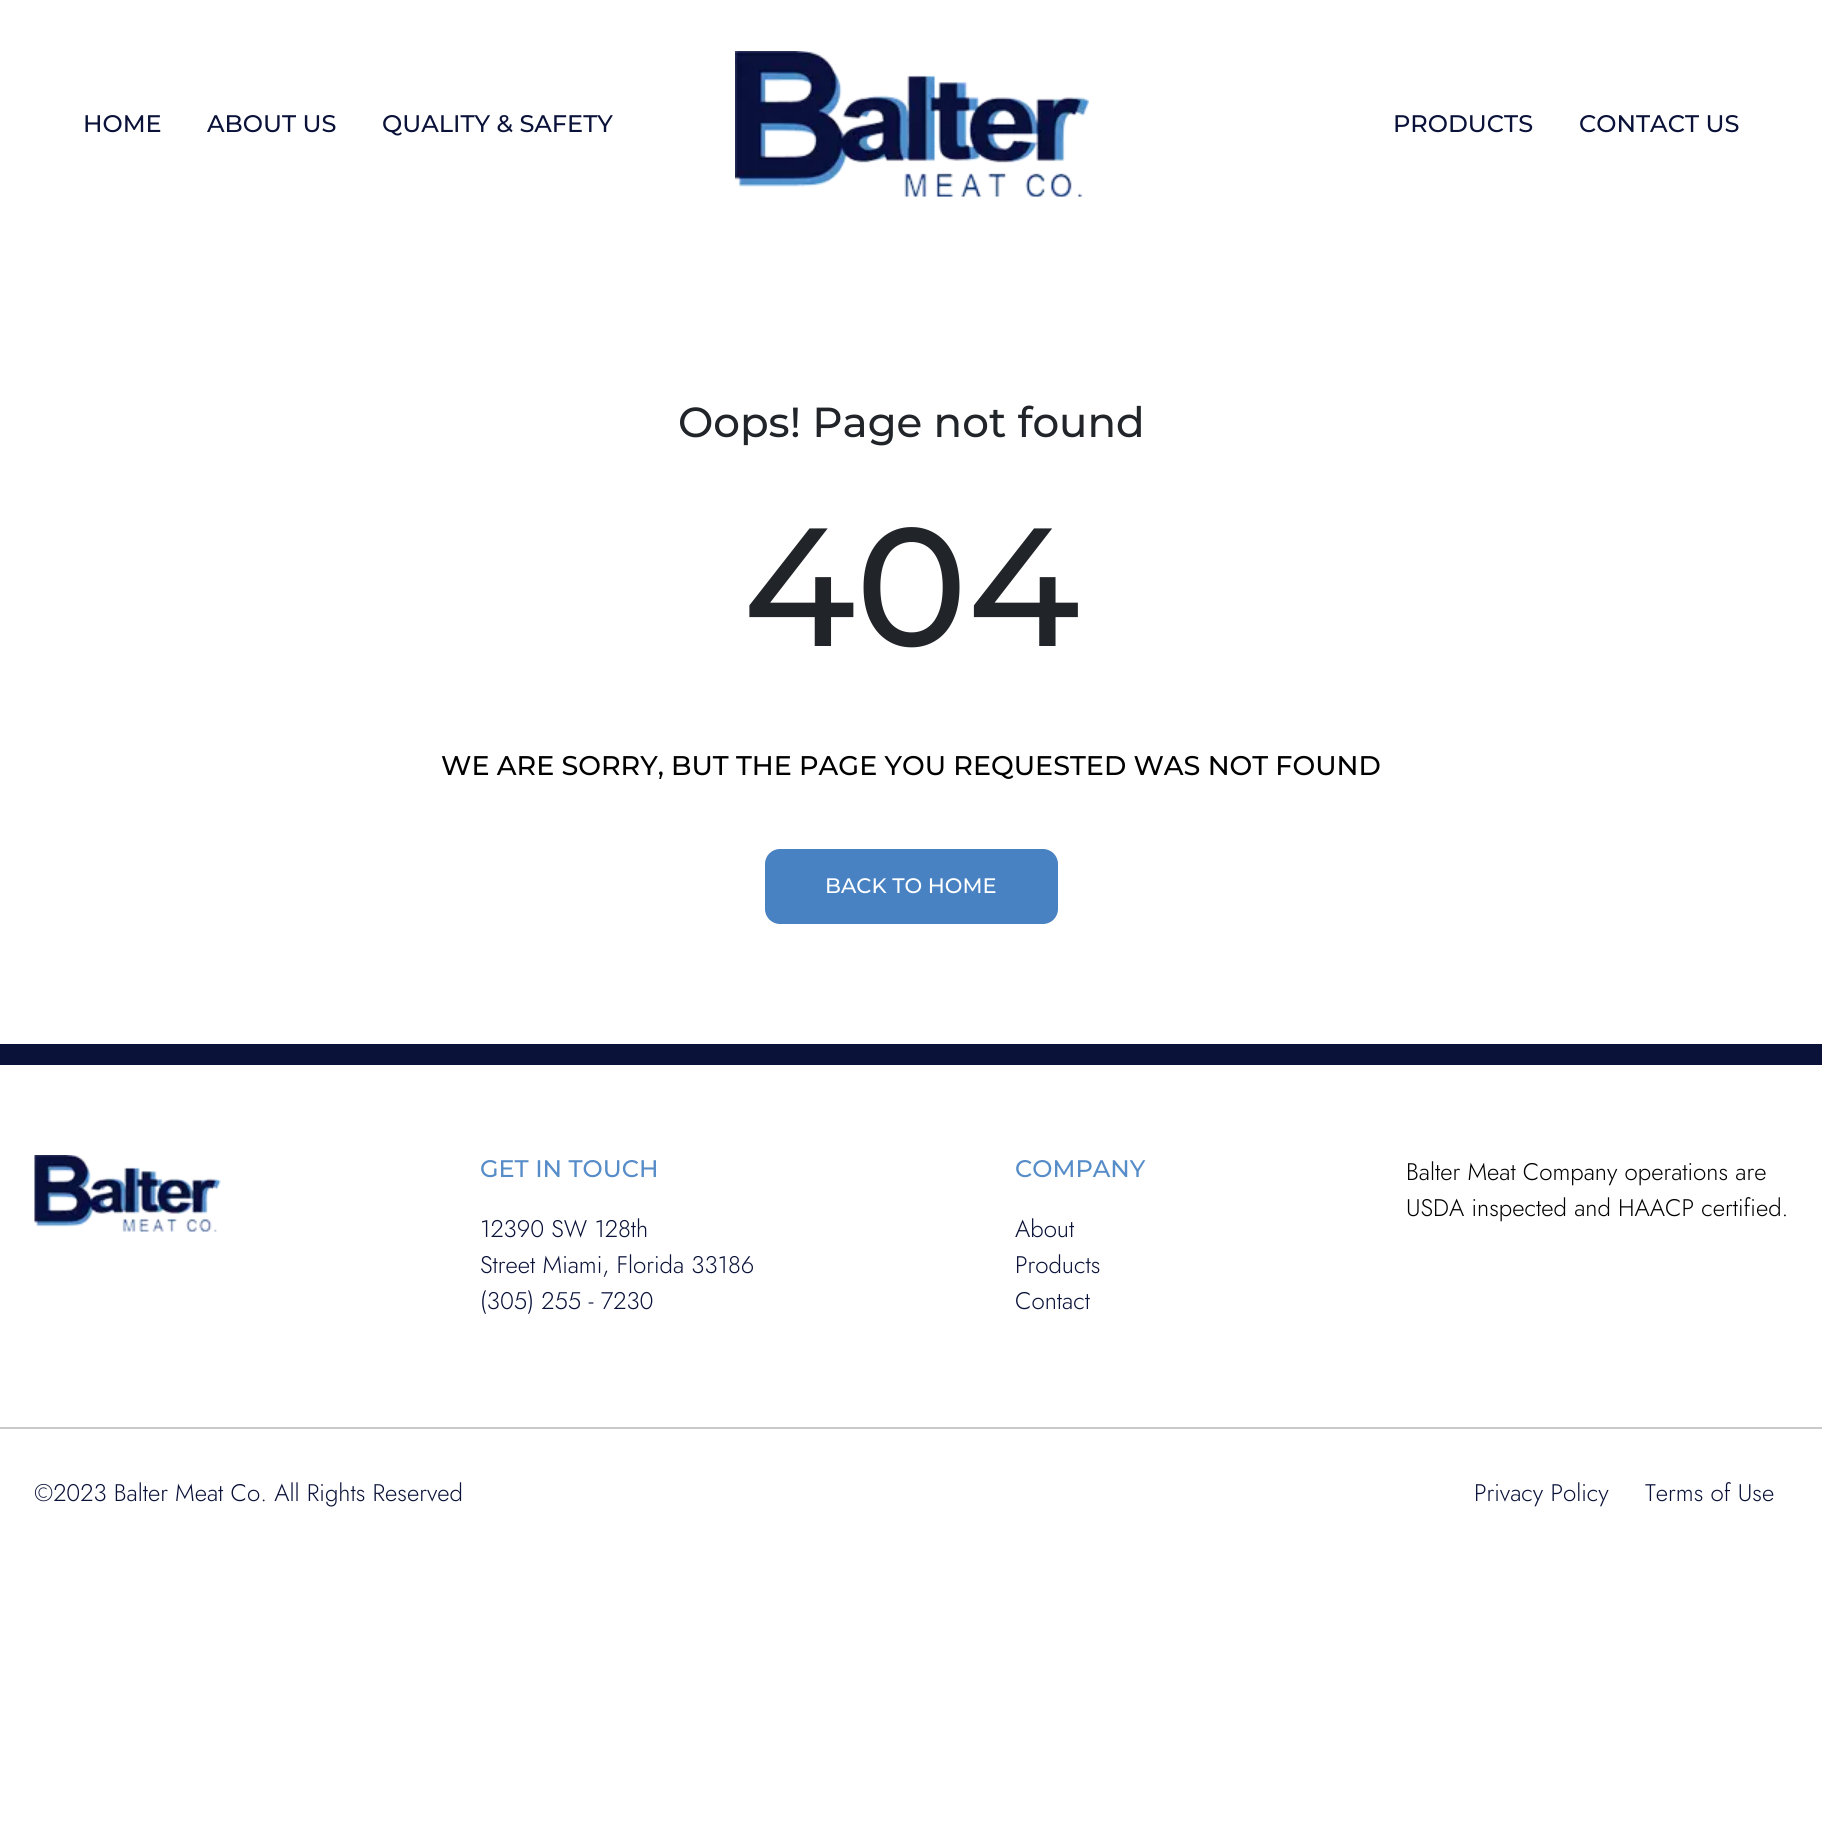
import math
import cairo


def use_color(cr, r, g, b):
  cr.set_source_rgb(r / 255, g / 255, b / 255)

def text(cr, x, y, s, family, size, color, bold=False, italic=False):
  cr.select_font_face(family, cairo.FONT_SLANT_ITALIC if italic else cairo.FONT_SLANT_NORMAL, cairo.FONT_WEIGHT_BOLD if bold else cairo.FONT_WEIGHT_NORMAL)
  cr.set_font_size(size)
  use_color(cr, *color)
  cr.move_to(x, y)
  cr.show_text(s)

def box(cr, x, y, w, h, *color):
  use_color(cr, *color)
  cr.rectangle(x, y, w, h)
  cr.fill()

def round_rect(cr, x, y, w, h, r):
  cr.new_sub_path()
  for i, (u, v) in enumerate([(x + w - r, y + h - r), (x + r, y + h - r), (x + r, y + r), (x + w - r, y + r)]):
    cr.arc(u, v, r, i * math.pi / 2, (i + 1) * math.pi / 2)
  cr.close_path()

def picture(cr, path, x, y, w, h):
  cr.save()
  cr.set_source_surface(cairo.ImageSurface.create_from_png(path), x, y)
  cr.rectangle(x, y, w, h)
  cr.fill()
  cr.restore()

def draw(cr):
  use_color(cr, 255, 255, 255)
  cr.paint()
  picture(cr, "img_01.png", 735, 51, 354, 146)
  use_color(cr, 72, 130, 194)
  round_rect(cr, 765, 849, 293, 75, 15)
  cr.fill()
  box(cr, 0, 1044, 1822, 21, 10, 18, 57)
  picture(cr, "img_02.png", 34, 1155, 187, 77)
  box(cr, 0, 1427, 1822, 2, 200, 201, 202)
  text(cr, 83, 132, "HOME", "Montserrat Medium", 24, (10, 18, 57))
  text(cr, 207, 132, "ABOUT US", "Montserrat Medium", 24, (10, 18, 57))
  text(cr, 382, 132, "QUALITY & SAFETY", "Montserrat Medium", 24, (10, 18, 57))
  text(cr, 1393, 132, "PRODUCTS", "Montserrat Medium", 24, (10, 18, 57))
  text(cr, 1579, 132, "CONTACT US", "Montserrat Medium", 24, (10, 18, 57))
  text(cr, 678, 437, "Oops! Page not found", "Montserrat Medium", 42, (33, 37, 41))
  text(cr, 743, 646, "404", "Montserrat Medium", 168, (33, 37, 41))
  text(cr, 441, 775, "WE ARE SORRY, BUT THE PAGE YOU REQUESTED WAS NOT FOUND", "Montserrat Medium", 27, (0, 0, 0))
  text(cr, 825, 893, "BACK TO HOME", "Montserrat Medium", 21, (255, 255, 255))
  text(cr, 480, 1177, "GET IN TOUCH", "Montserrat Medium", 24, (86, 140, 199))
  text(cr, 480, 1237, "12390 SW 128th", "Jost Light", 24, (10, 18, 57))
  text(cr, 480, 1273, "Street Miami, Florida 33186", "Jost Light", 24, (10, 18, 57))
  text(cr, 480, 1309, "(305) 255 - 7230", "Jost Light", 24, (10, 18, 57))
  text(cr, 1015, 1177, "COMPANY", "Montserrat Medium", 24, (86, 140, 199))
  text(cr, 1015, 1237, "About", "Jost Light", 24, (10, 18, 57))
  text(cr, 1015, 1273, "Products", "Jost Light", 24, (10, 18, 57))
  text(cr, 1015, 1309, "Contact", "Jost Light", 24, (10, 18, 57))
  text(cr, 1406, 1180, "Balter Meat Company operations are", "Jost Light", 24, (0, 0, 0))
  text(cr, 1406, 1216, "USDA inspected and HAACP certified.", "Jost Light", 24, (0, 0, 0))
  text(cr, 34, 1501, "©2023 Balter Meat Co. All Rights Reserved", "Jost Light", 24, (10, 18, 57))
  text(cr, 1474, 1501, "Privacy Policy", "Jost Light", 24, (10, 18, 57))
  text(cr, 1645, 1501, "Terms of Use", "Jost Light", 24, (10, 18, 57))


surface = cairo.ImageSurface(cairo.FORMAT_RGB24, 1822, 1833)
cr = cairo.Context(surface)
options = cairo.FontOptions()
options.set_hint_metrics(cairo.HINT_METRICS_OFF)
options.set_hint_style(cairo.HINT_STYLE_NONE)
cr.set_font_options(options)
cr.set_miter_limit(4)
draw(cr)
surface.write_to_png("out.png")
